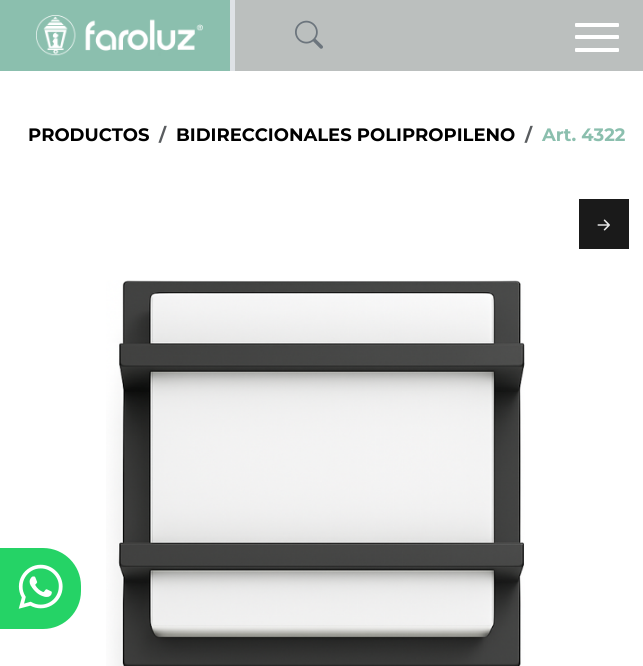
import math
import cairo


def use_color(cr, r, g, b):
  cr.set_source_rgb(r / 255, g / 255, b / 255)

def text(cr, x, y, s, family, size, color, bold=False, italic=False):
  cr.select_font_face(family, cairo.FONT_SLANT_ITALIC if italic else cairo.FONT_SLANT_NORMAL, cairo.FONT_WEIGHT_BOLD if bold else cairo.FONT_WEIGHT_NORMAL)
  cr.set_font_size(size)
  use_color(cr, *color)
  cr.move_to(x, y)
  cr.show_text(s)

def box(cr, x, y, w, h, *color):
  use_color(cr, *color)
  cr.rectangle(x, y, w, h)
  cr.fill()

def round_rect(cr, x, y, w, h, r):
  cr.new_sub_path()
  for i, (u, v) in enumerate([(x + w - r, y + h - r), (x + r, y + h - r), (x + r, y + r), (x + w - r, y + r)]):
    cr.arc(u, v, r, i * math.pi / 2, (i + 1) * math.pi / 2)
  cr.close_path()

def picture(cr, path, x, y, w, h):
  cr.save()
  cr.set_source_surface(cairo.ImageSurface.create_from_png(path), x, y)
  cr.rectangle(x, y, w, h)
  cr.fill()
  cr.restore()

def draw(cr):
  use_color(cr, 255, 255, 255)
  cr.paint()
  box(cr, 0, 0, 230, 71, 139, 191, 174)
  box(cr, 235, 0, 408, 71, 187, 191, 190)
  box(cr, 230, 0, 5, 71, 222, 226, 230)
  picture(cr, "img_01.png", 36, 15, 167, 41)
  picture(cr, "img_02.png", 295, 20, 28, 29)
  use_color(cr, 255, 255, 255)
  round_rect(cr, 575, 35, 44, 4, 1)
  cr.fill()
  round_rect(cr, 575, 23, 44, 4, 1)
  cr.fill()
  round_rect(cr, 575, 48, 44, 4, 1)
  cr.fill()
  use_color(cr, 37, 211, 102)
  cr.new_path()
  cr.move_to(-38, 548)
  cr.line_to(43, 548)
  cr.curve_to(64, 548, 81, 565, 81, 586)
  cr.line_to(81, 591)
  cr.curve_to(81, 612, 64, 629, 43, 629)
  cr.line_to(-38, 629)
  cr.close_path()
  cr.fill()
  picture(cr, "img_03.png", 18, 564, 45, 45)
  box(cr, 579, 199, 50, 50, 26, 26, 26)
  picture(cr, "img_04.png", 597, 219, 13, 12)
  picture(cr, "img_05.png", 106, 280, 419, 386)
  text(cr, 28, 141, "PRODUCTOS", "Montserrat", 18, (0, 0, 0), bold=True)
  text(cr, 159, 141, "/", "Montserrat", 18, (89, 92, 95), bold=True)
  text(cr, 176, 141, "BIDIRECCIONALES POLIPROPILENO", "Montserrat", 18, (0, 0, 0), bold=True)
  text(cr, 525, 141, "/", "Montserrat", 18, (89, 92, 95), bold=True)
  text(cr, 542, 141, "Art. 4322", "Montserrat", 18, (139, 191, 174), bold=True)


surface = cairo.ImageSurface(cairo.FORMAT_RGB24, 643, 666)
cr = cairo.Context(surface)
options = cairo.FontOptions()
options.set_hint_metrics(cairo.HINT_METRICS_OFF)
options.set_hint_style(cairo.HINT_STYLE_NONE)
cr.set_font_options(options)
cr.set_miter_limit(4)
draw(cr)
surface.write_to_png("out.png")
